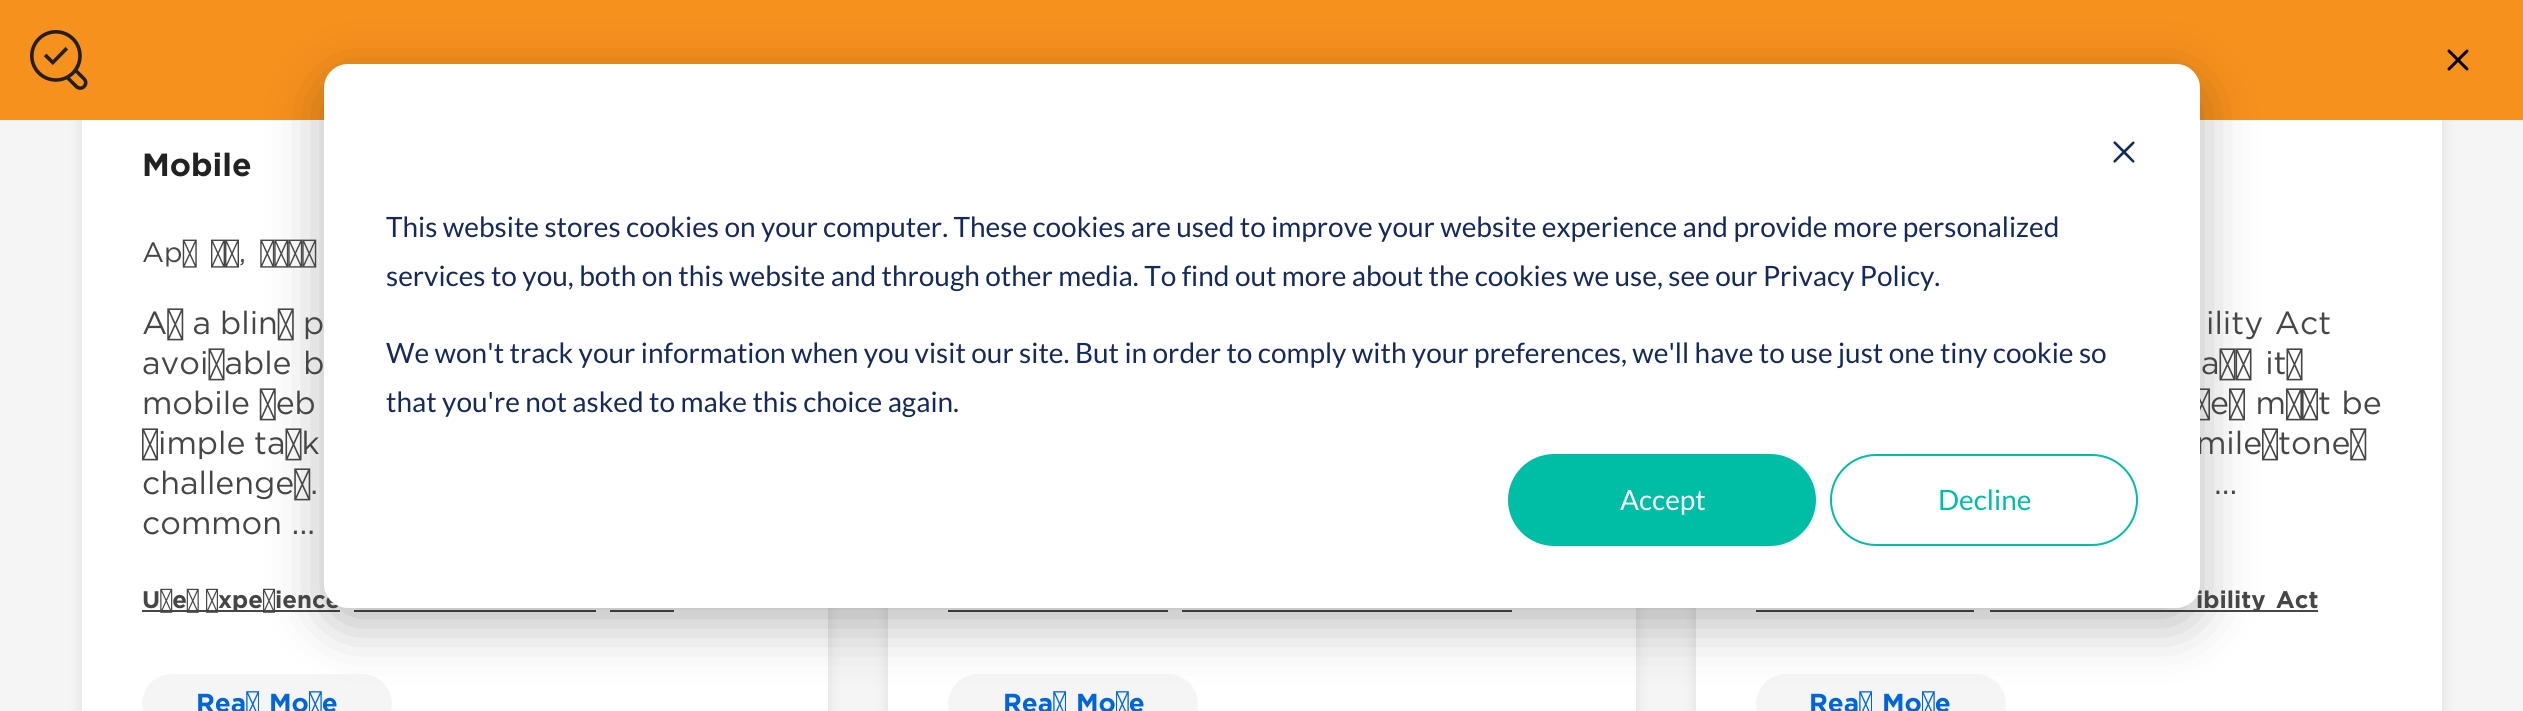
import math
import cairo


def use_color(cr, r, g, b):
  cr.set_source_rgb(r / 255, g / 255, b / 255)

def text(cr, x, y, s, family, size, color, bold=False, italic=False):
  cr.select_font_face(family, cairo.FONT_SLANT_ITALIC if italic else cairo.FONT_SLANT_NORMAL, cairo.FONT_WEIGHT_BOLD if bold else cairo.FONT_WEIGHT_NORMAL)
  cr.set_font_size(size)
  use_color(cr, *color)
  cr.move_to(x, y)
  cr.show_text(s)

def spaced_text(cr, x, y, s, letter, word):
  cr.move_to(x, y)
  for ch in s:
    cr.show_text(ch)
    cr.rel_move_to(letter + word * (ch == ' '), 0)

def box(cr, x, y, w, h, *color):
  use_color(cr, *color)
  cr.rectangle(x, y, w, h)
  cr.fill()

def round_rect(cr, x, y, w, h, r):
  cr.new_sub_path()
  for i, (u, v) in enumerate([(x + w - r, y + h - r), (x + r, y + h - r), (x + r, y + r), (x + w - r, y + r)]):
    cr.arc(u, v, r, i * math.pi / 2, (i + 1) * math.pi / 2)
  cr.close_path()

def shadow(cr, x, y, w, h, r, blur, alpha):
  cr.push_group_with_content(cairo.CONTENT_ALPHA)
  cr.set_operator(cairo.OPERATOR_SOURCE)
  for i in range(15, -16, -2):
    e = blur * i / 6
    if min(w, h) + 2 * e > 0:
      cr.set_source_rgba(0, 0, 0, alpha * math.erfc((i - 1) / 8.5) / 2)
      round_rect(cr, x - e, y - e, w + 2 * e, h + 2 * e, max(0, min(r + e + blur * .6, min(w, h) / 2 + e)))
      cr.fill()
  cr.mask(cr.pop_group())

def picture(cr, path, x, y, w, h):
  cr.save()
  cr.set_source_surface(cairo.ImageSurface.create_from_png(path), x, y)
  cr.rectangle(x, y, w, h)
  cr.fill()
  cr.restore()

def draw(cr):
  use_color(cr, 245, 245, 245)
  cr.paint()
  use_color(cr, 0, 0, 0)
  shadow(cr, 82, -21, 746, 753, 0, 7, 0.1)
  shadow(cr, 888, -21, 748, 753, 0, 7, 0.1)
  shadow(cr, 1696, -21, 746, 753, 0, 7, 0.1)
  box(cr, 0, 0, 2523, 120, 247, 145, 29)
  picture(cr, "img_01.png", 30, 30, 58, 60)
  picture(cr, "img_02.png", 2447, 49, 22, 22)
  box(cr, 82, 120, 746, 591, 255, 255, 255)
  box(cr, 142, 610, 198, 2, 70, 70, 70)
  box(cr, 354, 610, 242, 2, 70, 70, 70)
  box(cr, 610, 610, 64, 2, 70, 70, 70)
  use_color(cr, 245, 245, 245)
  round_rect(cr, 142, 674, 250, 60, 30)
  cr.fill()
  box(cr, 888, 608, 748, 103, 255, 255, 255)
  box(cr, 948, 610, 220, 2, 70, 70, 70)
  box(cr, 1182, 610, 330, 2, 70, 70, 70)
  use_color(cr, 245, 245, 245)
  round_rect(cr, 948, 674, 250, 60, 30)
  cr.fill()
  box(cr, 1696, 120, 746, 591, 255, 255, 255)
  box(cr, 1756, 610, 218, 2, 70, 70, 70)
  box(cr, 1990, 610, 328, 2, 70, 70, 70)
  use_color(cr, 245, 245, 245)
  round_rect(cr, 1756, 674, 250, 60, 30)
  cr.fill()
  use_color(cr, 0, 0, 0)
  shadow(cr, 324, 80, 1876, 544, 24, 28, 0.28)
  text(cr, 142, 176, "Mobile", "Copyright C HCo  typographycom", 32, (34, 34, 34))
  cr.select_font_face("Copyright C HCo  typographycom Light")
  cr.set_font_size(28)
  use_color(cr, 70, 70, 70)
  spaced_text(cr, 142, 262, "Apr 15, 2025", 0, 6)
  cr.set_font_size(32)
  spaced_text(cr, 142, 334, "As a blind p", 0, -0.5)
  spaced_text(cr, 142, 374, "avoidable b", 0, 2)
  text(cr, 142, 414, "mobile web", "Copyright C HCo  typographycom Light", 32, (70, 70, 70))
  spaced_text(cr, 142, 454, "simple task", 0, -1)
  spaced_text(cr, 142, 494, "challenges.", 0, -2)
  text(cr, 142, 534, "common ...", "Copyright C HCo  typographycom Light", 32, (70, 70, 70))
  text(cr, 142, 608, "User Experience", "Copyright C HCo  typographycom", 24, (70, 70, 70))
  cr.set_font_size(26)
  use_color(cr, 0, 101, 219)
  spaced_text(cr, 196, 712, "Read More", 0, 2)
  spaced_text(cr, 1003, 712, "Read More", 0, 2)
  cr.select_font_face("Copyright C HCo  typographycom Light")
  cr.set_font_size(32)
  use_color(cr, 70, 70, 70)
  spaced_text(cr, 2206, 334, "ility Act", 0, 2)
  spaced_text(cr, 2201, 374, "ard its", 0, 4)
  spaced_text(cr, 2194, 414, "ses must be", 0, 1)
  spaced_text(cr, 2196, 454, "milestones", 0, 3)
  text(cr, 2214, 494, "...", "Copyright C HCo  typographycom Light", 32, (70, 70, 70))
  cr.select_font_face("Copyright C HCo  typographycom")
  cr.set_font_size(24)
  spaced_text(cr, 2196, 608, "ibility Act", 0, 3)
  cr.set_font_size(26)
  use_color(cr, 0, 101, 219)
  spaced_text(cr, 1809, 712, "Read More", 0, 2)
  use_color(cr, 255, 255, 255)
  round_rect(cr, 324, 64, 1876, 544, 24)
  cr.fill()
  picture(cr, "img_03.png", 2113, 141, 22, 22)
  text(cr, 386, 237, "This website stores cookies on your computer. These cookies are used to improve your website experience and provide more personalized", "Lato", 28, (21, 41, 90))
  text(cr, 386, 286, "services to you, both on this website and through other media. To find out more about the cookies we use, see our Privacy Policy.", "Lato", 28, (21, 41, 90))
  text(cr, 386, 363, "We won't track your information when you visit our site. But in order to comply with your preferences, we'll have to use just one tiny cookie so", "Lato", 28, (21, 41, 90))
  text(cr, 386, 412, "that you're not asked to make this choice again.", "Lato", 28, (21, 41, 90))
  use_color(cr, 0, 189, 165)
  round_rect(cr, 1509, 455, 306, 90, 45)
  cr.fill_preserve()
  cr.stroke()
  text(cr, 1620, 510, "Accept", "Lato", 28, (255, 255, 255))
  round_rect(cr, 1831, 455, 306, 90, 45)
  use_color(cr, 0, 189, 165)
  cr.stroke()
  text(cr, 1938, 510, "Decline", "Lato", 28, (0, 189, 165))


surface = cairo.ImageSurface(cairo.FORMAT_RGB24, 2523, 711)
cr = cairo.Context(surface)
options = cairo.FontOptions()
options.set_hint_metrics(cairo.HINT_METRICS_OFF)
options.set_hint_style(cairo.HINT_STYLE_NONE)
cr.set_font_options(options)
cr.set_miter_limit(4)
draw(cr)
surface.write_to_png("out.png")
